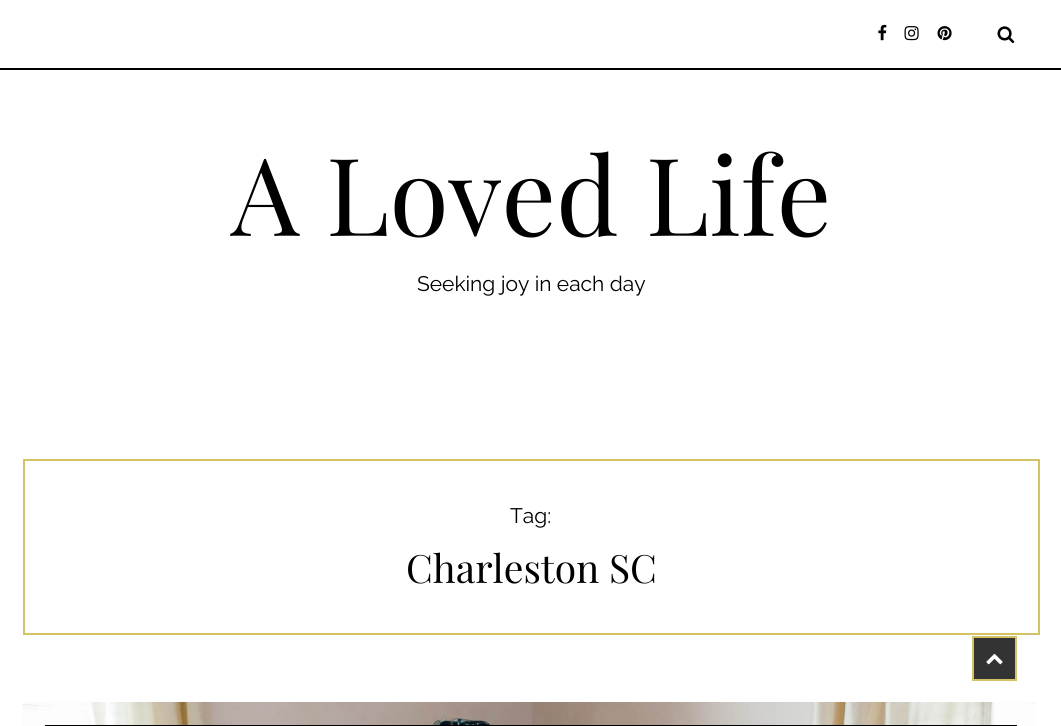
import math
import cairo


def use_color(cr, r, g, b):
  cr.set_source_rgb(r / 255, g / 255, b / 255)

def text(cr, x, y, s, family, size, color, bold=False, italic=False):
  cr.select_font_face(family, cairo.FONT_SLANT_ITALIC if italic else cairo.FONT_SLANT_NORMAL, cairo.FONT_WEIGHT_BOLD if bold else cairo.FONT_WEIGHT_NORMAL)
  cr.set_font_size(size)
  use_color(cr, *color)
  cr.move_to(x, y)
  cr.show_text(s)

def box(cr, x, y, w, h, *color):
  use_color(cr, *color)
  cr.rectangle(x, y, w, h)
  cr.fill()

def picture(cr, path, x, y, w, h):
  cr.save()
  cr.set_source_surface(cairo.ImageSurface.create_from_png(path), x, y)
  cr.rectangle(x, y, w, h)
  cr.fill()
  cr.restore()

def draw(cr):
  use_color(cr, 255, 255, 255)
  cr.paint()
  box(cr, 0, 68, 1061, 2, 0, 0, 0)
  picture(cr, "img_01.png", 878, 24, 9, 17)
  picture(cr, "img_02.png", 904, 26, 15, 15)
  picture(cr, "img_03.png", 937, 26, 15, 15)
  picture(cr, "img_04.png", 997, 26, 18, 17)
  cr.rectangle(24, 460, 1015, 174)
  use_color(cr, 212, 195, 102)
  cr.stroke()
  picture(cr, "img_05.png", 22, 702, 1015, 24)
  cr.rectangle(46, 726, 970, 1)
  use_color(cr, 0, 0, 0)
  cr.stroke()
  use_color(cr, 51, 51, 51)
  cr.rectangle(973, 637, 43, 43)
  cr.fill_preserve()
  use_color(cr, 212, 195, 102)
  cr.stroke()
  picture(cr, "img_06.png", 986, 653, 17, 12)
  text(cr, 231, 236, "A Loved Life", "Playfair Display", 108, (0, 0, 0))
  text(cr, 417, 291, "Seeking joy in each day", "Raleway", 21, (0, 0, 0))
  text(cr, 510, 523, "Tag:", "Raleway", 21, (0, 0, 0))
  text(cr, 406, 583, "Charleston SC", "Playfair Display", 39, (0, 0, 0))


surface = cairo.ImageSurface(cairo.FORMAT_RGB24, 1061, 726)
cr = cairo.Context(surface)
options = cairo.FontOptions()
options.set_hint_metrics(cairo.HINT_METRICS_OFF)
options.set_hint_style(cairo.HINT_STYLE_NONE)
cr.set_font_options(options)
cr.set_miter_limit(4)
draw(cr)
surface.write_to_png("out.png")
